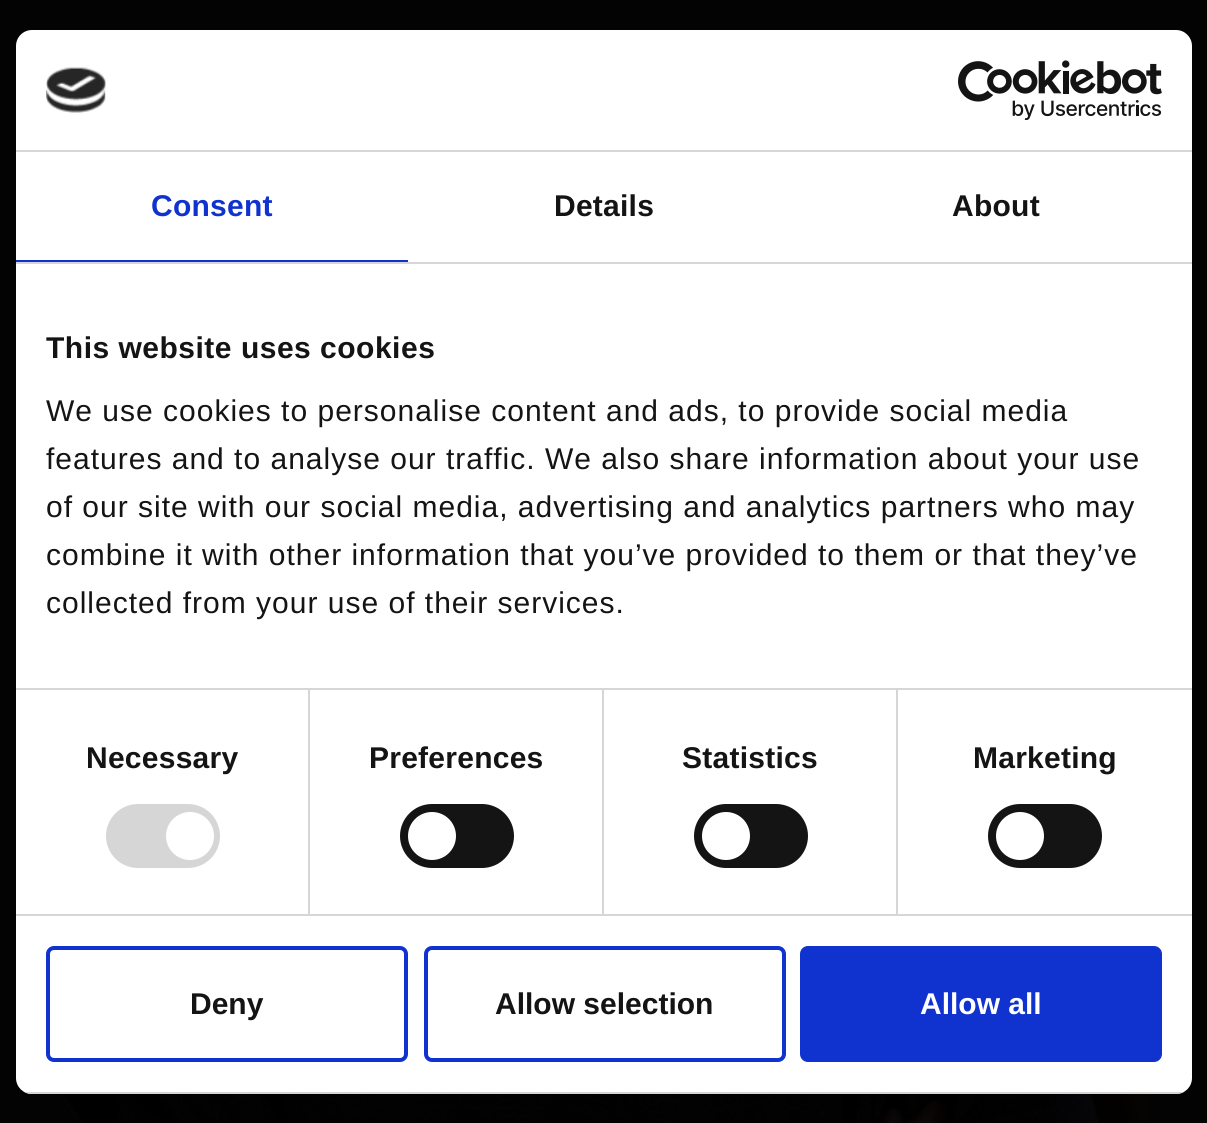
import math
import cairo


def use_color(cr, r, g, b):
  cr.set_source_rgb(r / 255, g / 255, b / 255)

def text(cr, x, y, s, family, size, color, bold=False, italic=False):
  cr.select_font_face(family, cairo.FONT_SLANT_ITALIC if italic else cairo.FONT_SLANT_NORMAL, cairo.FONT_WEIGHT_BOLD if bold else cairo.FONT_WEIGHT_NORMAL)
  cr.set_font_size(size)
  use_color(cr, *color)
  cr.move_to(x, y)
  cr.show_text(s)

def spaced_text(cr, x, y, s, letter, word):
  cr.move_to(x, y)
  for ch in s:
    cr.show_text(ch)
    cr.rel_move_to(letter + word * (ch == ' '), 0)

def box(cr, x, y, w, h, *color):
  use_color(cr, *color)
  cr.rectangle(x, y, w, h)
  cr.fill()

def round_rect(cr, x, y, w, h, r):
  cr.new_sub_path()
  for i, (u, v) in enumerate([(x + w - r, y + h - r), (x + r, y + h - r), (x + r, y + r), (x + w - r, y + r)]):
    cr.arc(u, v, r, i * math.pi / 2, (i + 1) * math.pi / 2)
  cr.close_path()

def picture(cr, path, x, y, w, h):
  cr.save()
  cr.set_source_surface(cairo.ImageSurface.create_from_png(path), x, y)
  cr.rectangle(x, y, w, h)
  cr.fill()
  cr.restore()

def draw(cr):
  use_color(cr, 3, 3, 4)
  cr.paint()
  use_color(cr, 255, 255, 255)
  round_rect(cr, 16, 30, 1176, 1064, 16)
  cr.fill()
  box(cr, 16, 150, 1176, 2, 214, 214, 214)
  picture(cr, "img_01.png", 46, 67, 60, 46)
  picture(cr, "img_02.png", 958, 60, 204, 60)
  box(cr, 16, 262, 1176, 2, 214, 214, 214)
  box(cr, 16, 260, 392, 2, 16, 50, 207)
  box(cr, 16, 688, 1176, 2, 214, 214, 214)
  box(cr, 16, 914, 1176, 2, 214, 214, 214)
  box(cr, 308, 690, 2, 224, 214, 214, 214)
  round_rect(cr, 106, 804, 114, 64, 32)
  cr.fill()
  use_color(cr, 255, 255, 255)
  cr.arc(190, 836, 24, 0, 2 * math.pi)
  cr.fill()
  box(cr, 602, 690, 2, 224, 214, 214, 214)
  use_color(cr, 20, 20, 20)
  round_rect(cr, 400, 804, 114, 64, 32)
  cr.fill()
  use_color(cr, 255, 255, 255)
  cr.arc(432, 836, 24, 0, 2 * math.pi)
  cr.fill()
  box(cr, 896, 690, 2, 224, 214, 214, 214)
  use_color(cr, 20, 20, 20)
  round_rect(cr, 694, 804, 114, 64, 32)
  cr.fill()
  use_color(cr, 255, 255, 255)
  cr.arc(726, 836, 24, 0, 2 * math.pi)
  cr.fill()
  use_color(cr, 20, 20, 20)
  round_rect(cr, 988, 804, 114, 64, 32)
  cr.fill()
  use_color(cr, 255, 255, 255)
  cr.arc(1020, 836, 24, 0, 2 * math.pi)
  cr.fill()
  cr.save()
  round_rect(cr, 16, 30, 1176, 1064, 16)
  cr.clip()
  box(cr, 16, 1092, 1176, 2, 214, 214, 214)
  cr.restore()
  round_rect(cr, 48, 948, 358, 112, 6)
  use_color(cr, 16, 50, 207)
  cr.set_line_width(4)
  cr.stroke()
  round_rect(cr, 426, 948, 358, 112, 6)
  cr.stroke()
  round_rect(cr, 802, 948, 358, 112, 6)
  cr.fill_preserve()
  cr.stroke()
  picture(cr, "img_03.png", 60, 1094, 1088, 29)
  cr.select_font_face("Liberation Sans", cairo.FONT_SLANT_NORMAL, cairo.FONT_WEIGHT_BOLD)
  cr.set_font_size(30)
  spaced_text(cr, 151, 216, "Consent", 0.25, 0)
  use_color(cr, 20, 20, 20)
  spaced_text(cr, 554, 216, "Details", 0.25, 0)
  spaced_text(cr, 952, 216, "About", 0.25, 0)
  spaced_text(cr, 46, 358, "This website uses cookies", 0.5, 0)
  cr.select_font_face("Liberation Sans")
  spaced_text(cr, 46, 421, "We use cookies to personalise content and ads, to provide social media", 1, 0)
  spaced_text(cr, 46, 469, "features and to analyse our traffic. We also share information about your use", 1, 0)
  spaced_text(cr, 46, 517, "of our site with our social media, advertising and analytics partners who may", 1, 0)
  spaced_text(cr, 46, 565, "combine it with other information that you’ve provided to them or that they’ve", 1, 0)
  spaced_text(cr, 46, 613, "collected from your use of their services.", 1, 0)
  cr.select_font_face("Liberation Sans", cairo.FONT_SLANT_NORMAL, cairo.FONT_WEIGHT_BOLD)
  spaced_text(cr, 86, 768, "Necessary", 0.25, 0)
  spaced_text(cr, 369, 768, "Preferences", 0.25, 0)
  spaced_text(cr, 682, 768, "Statistics", 0.25, 0)
  spaced_text(cr, 973, 768, "Marketing", 0.25, 0)
  text(cr, 190, 1014, "Deny", "Liberation Sans", 30, (20, 20, 20), bold=True)
  text(cr, 495, 1014, "Allow selection", "Liberation Sans", 30, (20, 20, 20), bold=True)
  text(cr, 920, 1014, "Allow all", "Liberation Sans", 30, (255, 255, 255), bold=True)


surface = cairo.ImageSurface(cairo.FORMAT_RGB24, 1207, 1123)
cr = cairo.Context(surface)
options = cairo.FontOptions()
options.set_hint_metrics(cairo.HINT_METRICS_OFF)
options.set_hint_style(cairo.HINT_STYLE_NONE)
cr.set_font_options(options)
cr.set_miter_limit(4)
draw(cr)
surface.write_to_png("out.png")
